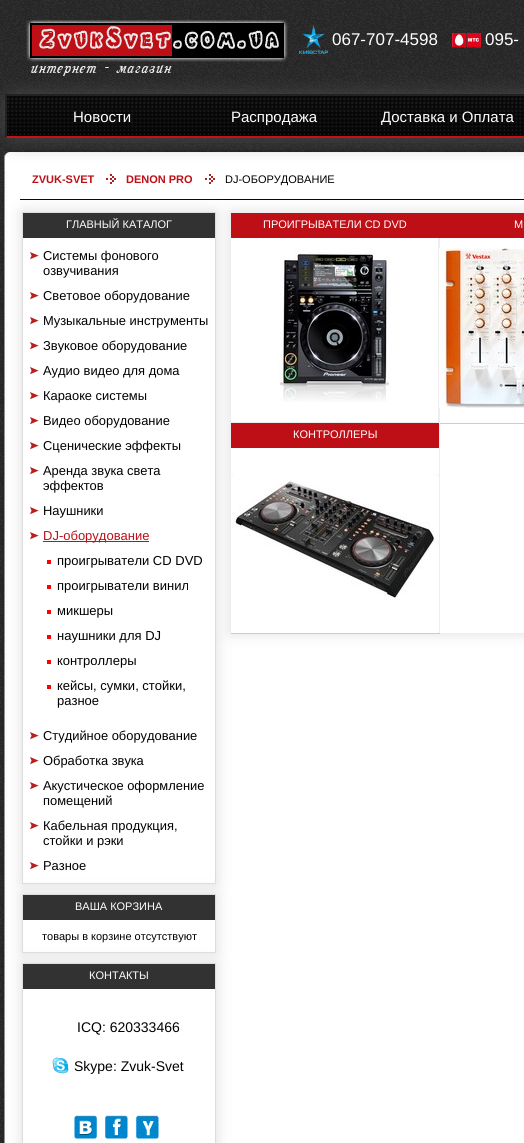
import math
import cairo


def use_color(cr, r, g, b):
  cr.set_source_rgb(r / 255, g / 255, b / 255)

def text(cr, x, y, s, family, size, color, bold=False, italic=False):
  cr.select_font_face(family, cairo.FONT_SLANT_ITALIC if italic else cairo.FONT_SLANT_NORMAL, cairo.FONT_WEIGHT_BOLD if bold else cairo.FONT_WEIGHT_NORMAL)
  cr.set_font_size(size)
  use_color(cr, *color)
  cr.move_to(x, y)
  cr.show_text(s)

def box(cr, x, y, w, h, *color):
  use_color(cr, *color)
  cr.rectangle(x, y, w, h)
  cr.fill()

def round_rect(cr, x, y, w, h, r):
  cr.new_sub_path()
  for i, (u, v) in enumerate([(x + w - r, y + h - r), (x + r, y + h - r), (x + r, y + r), (x + w - r, y + r)]):
    cr.arc(u, v, r, i * math.pi / 2, (i + 1) * math.pi / 2)
  cr.close_path()

def shadow(cr, x, y, w, h, r, blur, alpha):
  cr.push_group_with_content(cairo.CONTENT_ALPHA)
  cr.set_operator(cairo.OPERATOR_SOURCE)
  for i in range(15, -16, -2):
    e = blur * i / 6
    if min(w, h) + 2 * e > 0:
      cr.set_source_rgba(0, 0, 0, alpha * math.erfc((i - 1) / 8.5) / 2)
      round_rect(cr, x - e, y - e, w + 2 * e, h + 2 * e, max(0, min(r + e + blur * .6, min(w, h) / 2 + e)))
      cr.fill()
  cr.mask(cr.pop_group())

def picture(cr, path, x, y, w, h):
  cr.save()
  cr.set_source_surface(cairo.ImageSurface.create_from_png(path), x, y)
  cr.rectangle(x, y, w, h)
  cr.fill()
  cr.restore()

def draw(cr):
  use_color(cr, 255, 255, 255)
  cr.paint()
  picture(cr, "img_01.png", 0, 0, 524, 1143)
  picture(cr, "img_02.png", 4, 149, 520, 22)
  picture(cr, "img_03.png", 26, 20, 262, 56)
  picture(cr, "img_04.png", 299, 25, 29, 29)
  picture(cr, "img_05.png", 452, 33, 29, 15)
  use_color(cr, 72, 72, 72)
  shadow(cr, 5, 94, 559, 44, 10, 10, 1)
  picture(cr, "img_06.png", 5, 96, 519, 42)
  box(cr, 5, 94, 519, 2, 34, 34, 34)
  use_color(cr, 204, 15, 22)
  cr.new_path()
  cr.move_to(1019, 138)
  cr.line_to(5, 138)
  cr.line_to(7, 136)
  cr.line_to(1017, 136)
  cr.close_path()
  cr.fill()
  use_color(cr, 34, 34, 34)
  cr.new_path()
  cr.move_to(5, 138)
  cr.line_to(5, 94)
  cr.line_to(7, 96)
  cr.line_to(7, 136)
  cr.close_path()
  cr.fill()
  picture(cr, "img_07.png", 2, 171, 522, 972)
  box(cr, 20, 199, 504, 1, 0, 0, 0)
  picture(cr, "img_08.png", 106, 174, 10, 10)
  picture(cr, "img_08.png", 205, 174, 10, 10)
  cr.save()
  cr.set_fill_rule(cairo.FILL_RULE_EVEN_ODD)
  cr.new_path()
  cr.move_to(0, 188)
  cr.line_to(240, 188)
  cr.line_to(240, 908)
  cr.line_to(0, 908)
  cr.close_path()
  cr.move_to(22, 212)
  cr.line_to(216, 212)
  cr.line_to(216, 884)
  cr.line_to(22, 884)
  cr.close_path()
  cr.clip()
  use_color(cr, 221, 221, 221)
  shadow(cr, 22, 212, 194, 672, 0, 7.5, 1)
  cr.restore()
  cr.rectangle(22.5, 212.5, 193, 671)
  use_color(cr, 221, 221, 221)
  cr.set_line_width(1)
  cr.stroke()
  cr.save()
  cr.set_fill_rule(cairo.FILL_RULE_EVEN_ODD)
  cr.new_path()
  cr.move_to(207, 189)
  cr.line_to(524, 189)
  cr.line_to(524, 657)
  cr.line_to(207, 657)
  cr.close_path()
  cr.move_to(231, 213)
  cr.line_to(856, 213)
  cr.line_to(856, 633)
  cr.line_to(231, 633)
  cr.close_path()
  cr.clip()
  use_color(cr, 221, 221, 221)
  shadow(cr, 231, 213, 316, 420, 0, 7.5, 1)
  cr.restore()
  box(cr, 23, 213, 192, 25, 50, 50, 50)
  picture(cr, "img_09.png", 30, 252, 9, 8)
  picture(cr, "img_09.png", 30, 292, 9, 8)
  picture(cr, "img_09.png", 30, 317, 9, 8)
  picture(cr, "img_09.png", 30, 342, 9, 8)
  picture(cr, "img_09.png", 30, 367, 9, 8)
  picture(cr, "img_09.png", 30, 392, 9, 8)
  picture(cr, "img_09.png", 30, 417, 9, 8)
  picture(cr, "img_09.png", 30, 442, 9, 8)
  picture(cr, "img_09.png", 30, 467, 9, 8)
  picture(cr, "img_09.png", 30, 507, 9, 8)
  picture(cr, "img_09.png", 30, 532, 9, 8)
  box(cr, 43, 541, 106, 1, 190, 15, 22)
  box(cr, 47, 560, 4, 4, 255, 0, 0)
  box(cr, 47, 585, 4, 4, 255, 0, 0)
  box(cr, 47, 610, 4, 4, 255, 0, 0)
  box(cr, 47, 635, 4, 4, 255, 0, 0)
  box(cr, 47, 660, 4, 4, 255, 0, 0)
  box(cr, 47, 685, 4, 4, 255, 0, 0)
  picture(cr, "img_09.png", 30, 732, 9, 8)
  picture(cr, "img_09.png", 30, 757, 9, 8)
  picture(cr, "img_09.png", 30, 782, 9, 8)
  picture(cr, "img_09.png", 30, 822, 9, 8)
  picture(cr, "img_09.png", 30, 862, 9, 8)
  cr.save()
  cr.set_fill_rule(cairo.FILL_RULE_EVEN_ODD)
  cr.new_path()
  cr.move_to(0, 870)
  cr.line_to(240, 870)
  cr.line_to(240, 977)
  cr.line_to(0, 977)
  cr.close_path()
  cr.move_to(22, 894)
  cr.line_to(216, 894)
  cr.line_to(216, 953)
  cr.line_to(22, 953)
  cr.close_path()
  cr.clip()
  use_color(cr, 221, 221, 221)
  shadow(cr, 22, 894, 194, 59, 0, 7.5, 1)
  cr.restore()
  cr.rectangle(22.5, 894.5, 193, 58)
  use_color(cr, 221, 221, 221)
  cr.stroke()
  box(cr, 23, 895, 192, 25, 50, 50, 50)
  cr.save()
  cr.set_fill_rule(cairo.FILL_RULE_EVEN_ODD)
  cr.new_path()
  cr.move_to(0, 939)
  cr.line_to(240, 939)
  cr.line_to(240, 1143)
  cr.line_to(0, 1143)
  cr.close_path()
  cr.move_to(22, 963)
  cr.line_to(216, 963)
  cr.line_to(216, 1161)
  cr.line_to(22, 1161)
  cr.close_path()
  cr.clip()
  use_color(cr, 221, 221, 221)
  shadow(cr, 22, 963, 194, 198, 0, 7.5, 1)
  cr.restore()
  cr.rectangle(22.5, 963.5, 193, 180)
  use_color(cr, 221, 221, 221)
  cr.stroke()
  box(cr, 23, 964, 192, 25, 50, 50, 50)
  picture(cr, "img_10.png", 52, 1057, 17, 17)
  picture(cr, "img_11.png", 74, 1115, 23, 24)
  picture(cr, "img_12.png", 105, 1115, 23, 24)
  picture(cr, "img_13.png", 136, 1115, 23, 24)
  box(cr, 230, 212, 10, 1, 238, 238, 238)
  box(cr, 439, 212, 1, 212, 238, 238, 238)
  box(cr, 230, 212, 1, 9, 238, 238, 238)
  box(cr, 438, 423, 86, 1, 204, 204, 204)
  box(cr, 438, 212, 1, 212, 238, 238, 238)
  box(cr, 231, 213, 293, 25, 190, 15, 22)
  picture(cr, "img_14.png", 279, 248, 112, 154)
  picture(cr, "img_15.png", 439, 248, 85, 160)
  box(cr, 230, 422, 210, 1, 238, 238, 238)
  box(cr, 439, 422, 1, 212, 238, 238, 238)
  box(cr, 230, 633, 210, 1, 204, 204, 204)
  box(cr, 230, 625, 1, 9, 238, 238, 238)
  box(cr, 231, 423, 208, 25, 190, 15, 22)
  picture(cr, "img_16.png", 231, 473, 208, 128)
  text(cr, 332, 45, "067-707-4598", "Liberation Sans", 17, (255, 255, 255))
  text(cr, 485, 45, "095-", "Liberation Sans", 17, (255, 255, 255))
  text(cr, 73, 122, "Новости", "Liberation Sans", 15, (255, 255, 255))
  text(cr, 231, 122, "Распродажа", "Liberation Sans", 15, (255, 255, 255))
  text(cr, 381, 122, "Доставка и Оплата", "Liberation Sans", 15, (255, 255, 255))
  text(cr, 32, 183, "ZVUK-SVET", "Liberation Sans", 11, (190, 15, 22), bold=True)
  text(cr, 126, 183, "DENON PRO", "Liberation Sans", 11, (190, 15, 22), bold=True)
  text(cr, 225, 183, "DJ-ОБОРУДОВАНИЕ", "Liberation Sans", 11, (0, 0, 0))
  text(cr, 66, 228, "ГЛАВНЫЙ КАТАЛОГ", "Liberation Sans", 11, (255, 255, 255))
  text(cr, 43, 260, "Системы фонового", "Liberation Sans", 12.9, (0, 0, 0))
  text(cr, 43, 275, "озвучивания", "Liberation Sans", 12.9, (0, 0, 0))
  text(cr, 43, 300, "Световое оборудование", "Liberation Sans", 12.9, (0, 0, 0))
  text(cr, 43, 325, "Музыкальные инструменты", "Liberation Sans", 12.9, (0, 0, 0))
  text(cr, 43, 350, "Звуковое оборудование", "Liberation Sans", 12.9, (0, 0, 0))
  text(cr, 43, 375, "Аудио видео для дома", "Liberation Sans", 12.9, (0, 0, 0))
  text(cr, 43, 400, "Караоке системы", "Liberation Sans", 12.9, (0, 0, 0))
  text(cr, 43, 425, "Видео оборудование", "Liberation Sans", 12.9, (0, 0, 0))
  text(cr, 43, 450, "Сценические эффекты", "Liberation Sans", 12.9, (0, 0, 0))
  text(cr, 43, 475, "Аренда звука света", "Liberation Sans", 12.9, (0, 0, 0))
  text(cr, 43, 490, "эффектов", "Liberation Sans", 12.9, (0, 0, 0))
  text(cr, 43, 515, "Наушники", "Liberation Sans", 12.9, (0, 0, 0))
  text(cr, 43, 540, "DJ-оборудование", "Liberation Sans", 13, (190, 15, 22))
  text(cr, 57, 565, "проигрыватели CD DVD", "Liberation Sans", 13, (0, 0, 0))
  text(cr, 57, 590, "проигрыватели винил", "Liberation Sans", 13, (0, 0, 0))
  text(cr, 57, 615, "микшеры", "Liberation Sans", 13, (0, 0, 0))
  text(cr, 57, 640, "наушники для DJ", "Liberation Sans", 13, (0, 0, 0))
  text(cr, 57, 665, "контроллеры", "Liberation Sans", 13, (0, 0, 0))
  text(cr, 57, 690, "кейсы, сумки, стойки,", "Liberation Sans", 13, (0, 0, 0))
  text(cr, 57, 705, "разное", "Liberation Sans", 13, (0, 0, 0))
  text(cr, 43, 740, "Студийное оборудование", "Liberation Sans", 12.9, (0, 0, 0))
  text(cr, 43, 765, "Обработка звука", "Liberation Sans", 12.9, (0, 0, 0))
  text(cr, 43, 790, "Акустическое оформление", "Liberation Sans", 12.9, (0, 0, 0))
  text(cr, 43, 805, "помещений", "Liberation Sans", 12.9, (0, 0, 0))
  text(cr, 43, 830, "Кабельная продукция,", "Liberation Sans", 12.9, (0, 0, 0))
  text(cr, 43, 845, "стойки и рэки", "Liberation Sans", 12.9, (0, 0, 0))
  text(cr, 43, 870, "Разное", "Liberation Sans", 12.9, (0, 0, 0))
  text(cr, 75, 910, "ВАША КОРЗИНА", "Liberation Sans", 11, (255, 255, 255))
  text(cr, 42, 940, "товары в корзине отсутствуют", "Liberation Sans", 11, (0, 0, 0))
  text(cr, 89, 979, "КОНТАКТЫ", "Liberation Sans", 11, (255, 255, 255))
  text(cr, 77, 1032, "ICQ: 620333466", "Liberation Sans", 14, (0, 0, 0))
  text(cr, 74, 1071, "Skype: Zvuk-Svet", "Liberation Sans", 14, (0, 0, 0))
  text(cr, 263, 228, "ПРОИГРЫВАТЕЛИ CD DVD", "Liberation Sans", 11, (255, 255, 255))
  text(cr, 514, 228, "М", "Liberation Sans", 11, (255, 255, 255))
  text(cr, 293, 438, "КОНТРОЛЛЕРЫ", "Liberation Sans", 11, (255, 255, 255))


surface = cairo.ImageSurface(cairo.FORMAT_RGB24, 524, 1143)
cr = cairo.Context(surface)
options = cairo.FontOptions()
options.set_hint_metrics(cairo.HINT_METRICS_OFF)
options.set_hint_style(cairo.HINT_STYLE_NONE)
cr.set_font_options(options)
cr.set_miter_limit(4)
draw(cr)
surface.write_to_png("out.png")
